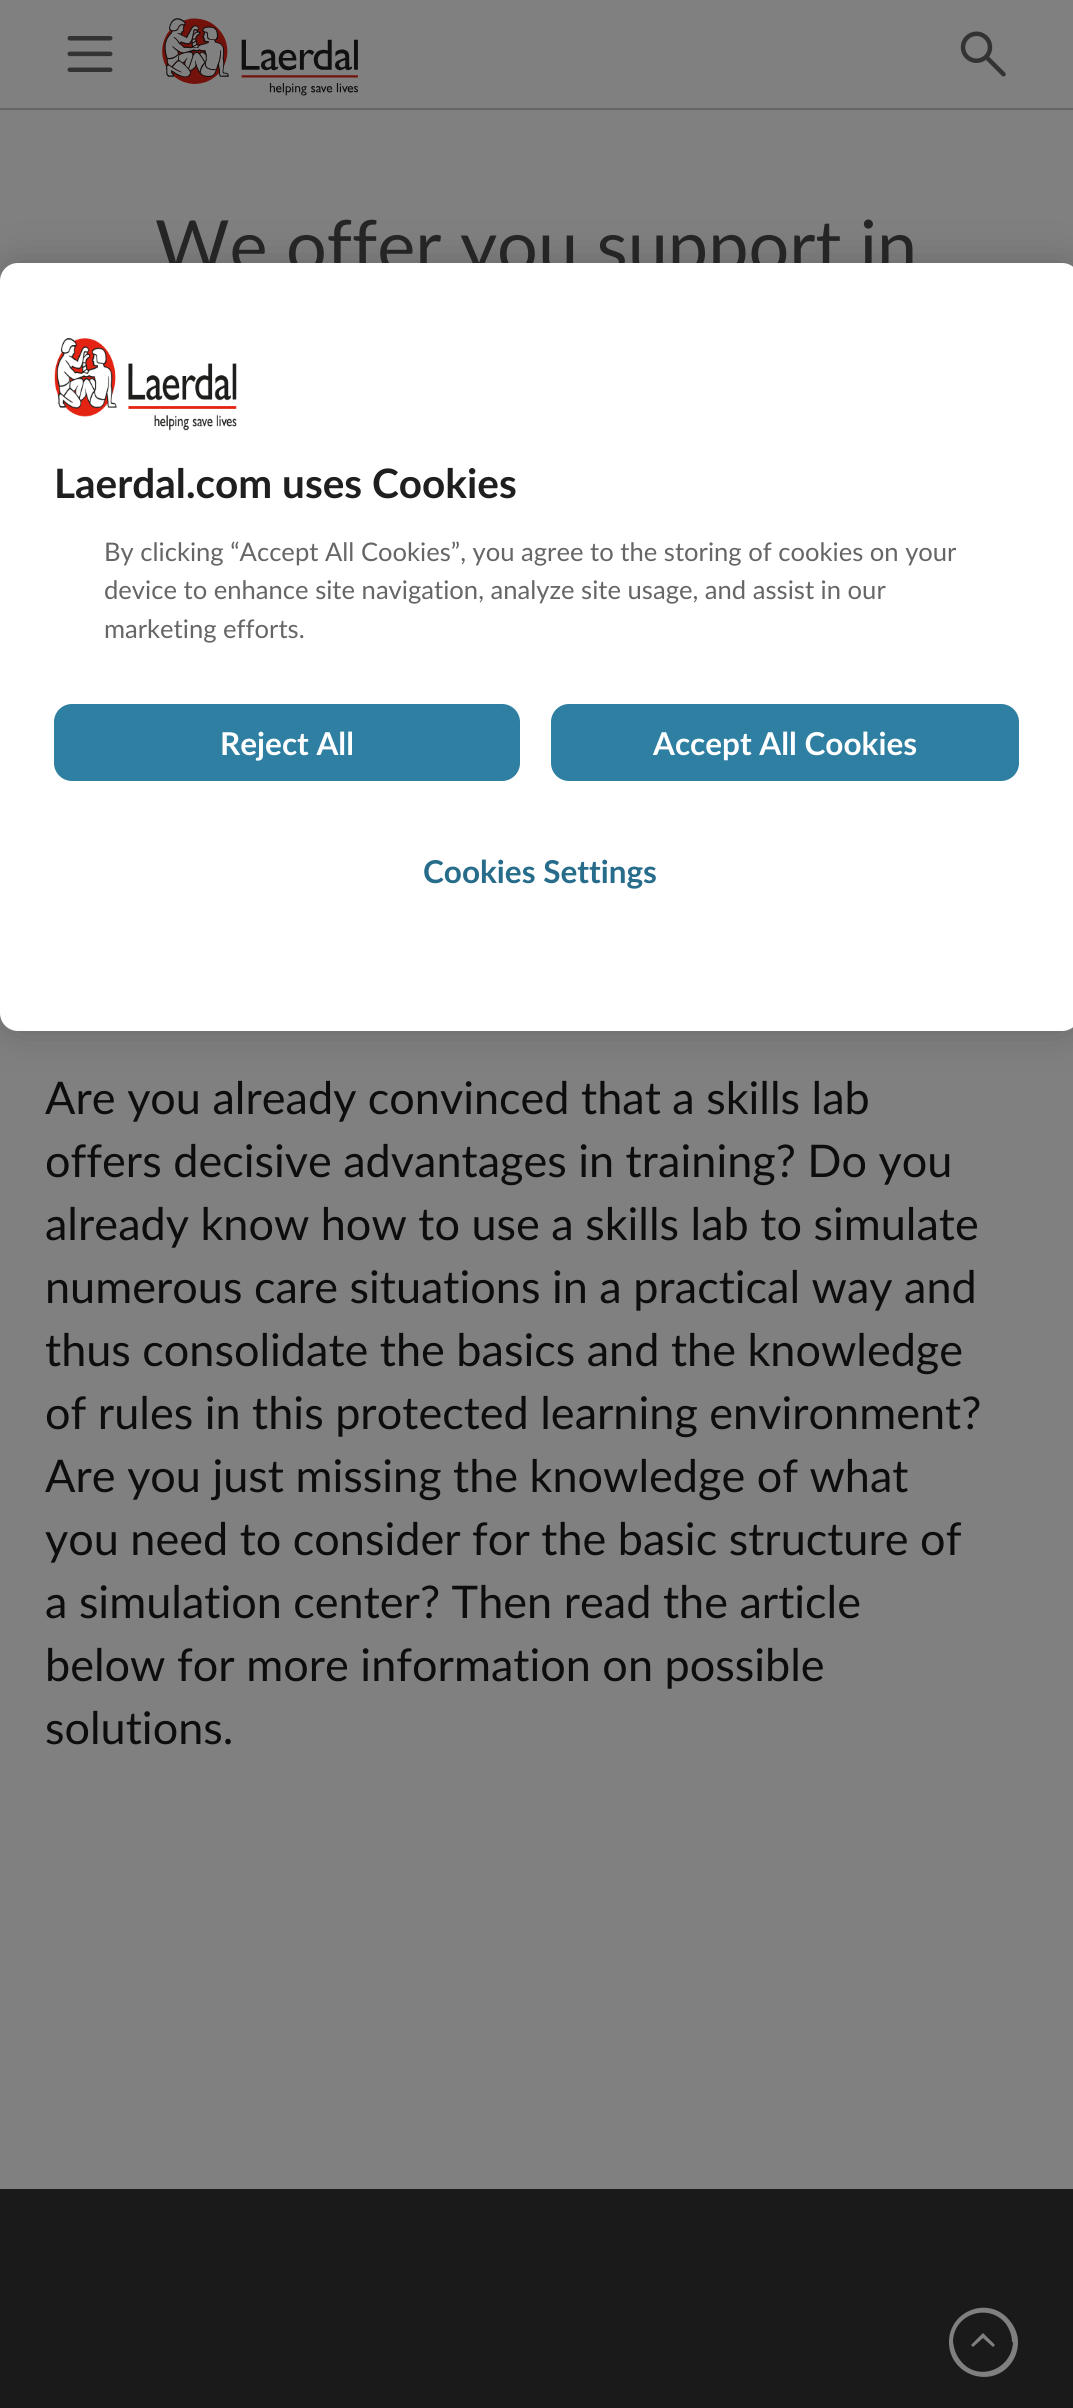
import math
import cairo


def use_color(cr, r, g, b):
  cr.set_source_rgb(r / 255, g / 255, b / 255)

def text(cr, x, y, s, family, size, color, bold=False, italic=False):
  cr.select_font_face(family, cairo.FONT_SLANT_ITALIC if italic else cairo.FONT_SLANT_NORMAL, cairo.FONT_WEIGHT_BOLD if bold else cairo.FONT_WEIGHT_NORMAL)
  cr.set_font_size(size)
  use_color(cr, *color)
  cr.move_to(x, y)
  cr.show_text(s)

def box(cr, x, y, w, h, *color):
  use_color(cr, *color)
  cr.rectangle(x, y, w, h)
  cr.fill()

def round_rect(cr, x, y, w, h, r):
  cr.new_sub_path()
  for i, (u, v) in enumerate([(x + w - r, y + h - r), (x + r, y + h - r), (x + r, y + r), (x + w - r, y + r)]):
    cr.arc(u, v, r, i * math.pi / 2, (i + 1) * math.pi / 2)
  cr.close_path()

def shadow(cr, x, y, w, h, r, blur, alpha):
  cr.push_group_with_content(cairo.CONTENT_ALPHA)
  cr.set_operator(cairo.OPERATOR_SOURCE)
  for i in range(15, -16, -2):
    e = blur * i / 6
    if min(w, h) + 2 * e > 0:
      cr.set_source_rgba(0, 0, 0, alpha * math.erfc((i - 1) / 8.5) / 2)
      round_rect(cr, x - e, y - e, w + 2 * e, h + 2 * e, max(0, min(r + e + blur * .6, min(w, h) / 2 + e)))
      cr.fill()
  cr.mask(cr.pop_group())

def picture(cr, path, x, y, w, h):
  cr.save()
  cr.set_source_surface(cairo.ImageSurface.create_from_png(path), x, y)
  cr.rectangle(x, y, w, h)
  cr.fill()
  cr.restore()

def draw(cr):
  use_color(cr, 128, 128, 128)
  cr.paint()
  box(cr, 0, 108, 1073, 2, 102, 102, 102)
  picture(cr, "img_01.png", 67, 36, 46, 36)
  picture(cr, "img_02.png", 162, 18, 196, 78)
  picture(cr, "img_03.png", 960, 31, 46, 46)
  box(cr, 0, 2189, 1073, 219, 26, 26, 26)
  use_color(cr, 128, 128, 128)
  cr.new_path()
  cr.move_to(949, 2342)
  cr.curve_to(949, 2376, 993, 2390, 1012, 2362)
  cr.curve_to(1016, 2356, 1018, 2349, 1018, 2342)
  cr.curve_to(1018, 2335, 1015, 2327, 1010, 2321)
  cr.curve_to(990, 2295, 949, 2310, 949, 2342)
  cr.close_path()
  cr.move_to(1013, 2342)
  cr.curve_to(1012, 2370, 977, 2383, 960, 2360)
  cr.curve_to(956, 2355, 954, 2349, 953, 2342)
  cr.curve_to(953, 2314, 989, 2302, 1006, 2324)
  cr.curve_to(1010, 2330, 1012, 2336, 1012, 2342)
  cr.close_path()
  cr.move_to(971, 2345)
  cr.line_to(973, 2347)
  cr.line_to(983, 2338)
  cr.line_to(993, 2347)
  cr.line_to(995, 2345)
  cr.line_to(983, 2333)
  cr.close_path()
  cr.fill()
  use_color(cr, 0, 0, 0)
  shadow(cr, 0, 263, 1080, 768, 18, 20, 0.2)
  text(cr, 155, 272, "We offer you support in", "Lato", 72, (37, 37, 37))
  text(cr, 45, 1114, "Are you already convinced that a skills lab", "Lato", 45, (13, 13, 13))
  text(cr, 45, 1177, "offers decisive advantages in training? Do you", "Lato", 45, (13, 13, 13))
  text(cr, 45, 1240, "already know how to use a skills lab to simulate", "Lato", 45, (13, 13, 13))
  text(cr, 45, 1303, "numerous care situations in a practical way and", "Lato", 45, (13, 13, 13))
  text(cr, 45, 1366, "thus consolidate the basics and the knowledge", "Lato", 45, (13, 13, 13))
  text(cr, 45, 1429, "of rules in this protected learning environment?", "Lato", 45, (13, 13, 13))
  text(cr, 45, 1492, "Are you just missing the knowledge of what", "Lato", 45, (13, 13, 13))
  text(cr, 45, 1555, "you need to consider for the basic structure of", "Lato", 45, (13, 13, 13))
  text(cr, 45, 1618, "a simulation center? Then read the article", "Lato", 45, (13, 13, 13))
  text(cr, 45, 1681, "below for more information on possible", "Lato", 45, (13, 13, 13))
  text(cr, 45, 1744, "solutions.", "Lato", 45, (13, 13, 13))
  use_color(cr, 255, 255, 255)
  round_rect(cr, 0, 263, 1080, 768, 18)
  cr.fill()
  picture(cr, "img_04.png", 54, 338, 183, 93)
  text(cr, 54, 498, "Laerdal.com uses Cookies", "Lato", 40.5, (31, 31, 31), bold=True)
  text(cr, 104, 561, "By clicking “Accept All Cookies”, you agree to the storing of cookies on your", "Lato", 25.6, (102, 102, 102))
  text(cr, 104, 599, "device to enhance site navigation, analyze site usage, and assist in our", "Lato", 25.6, (102, 102, 102))
  text(cr, 104, 638, "marketing efforts.", "Lato", 25.6, (102, 102, 102))
  use_color(cr, 46, 127, 161)
  round_rect(cr, 55, 705, 464, 75, 17)
  cr.fill_preserve()
  cr.stroke()
  text(cr, 220, 755, "Reject All", "Lato", 31.5, (255, 255, 255), bold=True)
  use_color(cr, 46, 127, 161)
  round_rect(cr, 552, 705, 466, 75, 17)
  cr.fill_preserve()
  cr.stroke()
  text(cr, 653, 755, "Accept All Cookies", "Lato", 31.5, (255, 255, 255), bold=True)
  text(cr, 423, 883, "Cookies Settings", "Lato", 31.5, (39, 109, 139), bold=True)


surface = cairo.ImageSurface(cairo.FORMAT_RGB24, 1073, 2408)
cr = cairo.Context(surface)
options = cairo.FontOptions()
options.set_hint_metrics(cairo.HINT_METRICS_OFF)
options.set_hint_style(cairo.HINT_STYLE_NONE)
cr.set_font_options(options)
cr.set_miter_limit(4)
draw(cr)
surface.write_to_png("out.png")
